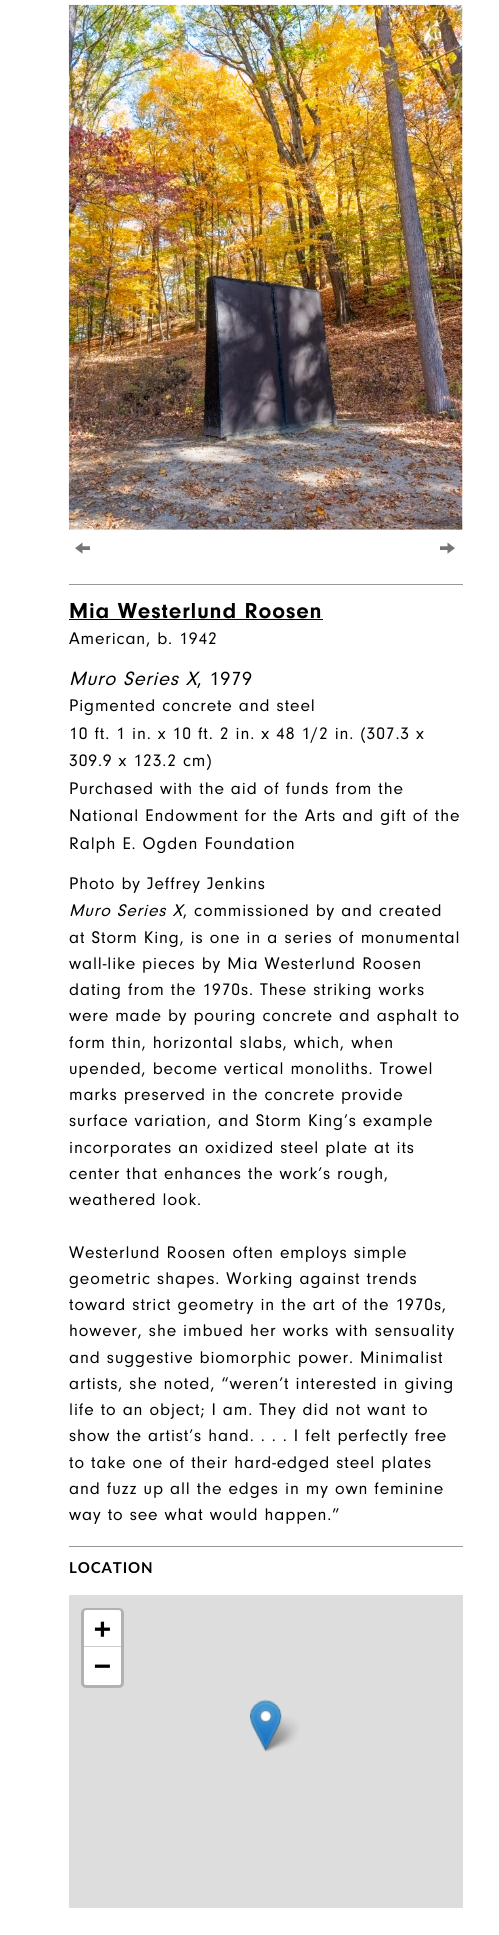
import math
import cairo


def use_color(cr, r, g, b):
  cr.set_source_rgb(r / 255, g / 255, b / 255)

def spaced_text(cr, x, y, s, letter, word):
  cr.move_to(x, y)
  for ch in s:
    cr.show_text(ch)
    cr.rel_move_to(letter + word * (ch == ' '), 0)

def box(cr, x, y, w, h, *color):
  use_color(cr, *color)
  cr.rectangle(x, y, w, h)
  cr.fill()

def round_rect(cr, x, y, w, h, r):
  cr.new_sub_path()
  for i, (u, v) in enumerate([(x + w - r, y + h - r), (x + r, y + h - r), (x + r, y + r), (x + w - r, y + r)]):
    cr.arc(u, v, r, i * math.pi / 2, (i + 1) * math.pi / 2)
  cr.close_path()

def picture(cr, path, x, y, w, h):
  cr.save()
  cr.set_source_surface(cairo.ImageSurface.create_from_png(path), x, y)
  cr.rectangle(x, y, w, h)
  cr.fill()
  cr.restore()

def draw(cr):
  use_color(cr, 255, 255, 255)
  cr.paint()
  picture(cr, "img_01.png", 68, 4, 395, 526)
  picture(cr, "img_02.png", 75, 542, 15, 12)
  picture(cr, "img_03.png", 440, 542, 15, 12)
  box(cr, 69, 584, 394, 1, 152, 150, 151)
  box(cr, 69, 619, 254, 1, 0, 0, 0)
  box(cr, 69, 1546, 394, 1, 152, 150, 151)
  box(cr, 69, 1595, 394, 313, 221, 221, 221)
  round_rect(cr, 82.5, 1609.5, 40, 77, 3.5)
  use_color(cr, 177, 177, 177)
  cr.set_line_width(3)
  cr.stroke()
  use_color(cr, 255, 255, 255)
  cr.new_path()
  cr.move_to(86.5, 1610)
  cr.line_to(118.5, 1610)
  cr.curve_to(120, 1610, 121, 1611, 121, 1612.5)
  cr.line_to(121, 1648)
  cr.line_to(84, 1648)
  cr.line_to(84, 1612.5)
  cr.curve_to(84, 1611, 85, 1610, 86.5, 1610)
  cr.close_path()
  cr.fill()
  box(cr, 84, 1646, 37, 1, 204, 204, 204)
  use_color(cr, 255, 255, 255)
  cr.new_path()
  cr.move_to(84, 1648)
  cr.line_to(121, 1648)
  cr.line_to(121, 1682.5)
  cr.curve_to(121, 1684, 120, 1685, 118.5, 1685)
  cr.line_to(86.5, 1685)
  cr.curve_to(85, 1685, 84, 1684, 84, 1682.5)
  cr.close_path()
  cr.fill()
  picture(cr, "img_05.png", 261, 1716, 38, 36)
  picture(cr, "img_04.png", 250, 1699, 32, 53)
  cr.select_font_face("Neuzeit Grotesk", cairo.FONT_SLANT_NORMAL, cairo.FONT_WEIGHT_BOLD)
  cr.set_font_size(22.5)
  use_color(cr, 0, 0, 0)
  spaced_text(cr, 69, 618, "Mia Westerlund Roosen", 0.88, 0)
  cr.select_font_face("Neuzeit Grotesk")
  cr.set_font_size(17.5)
  spaced_text(cr, 69, 644, "American, b. 1942", 0.88, 0)
  cr.select_font_face("Neuzeit Grotesk", cairo.FONT_SLANT_ITALIC)
  cr.set_font_size(20)
  spaced_text(cr, 69, 685, "Muro Series X", 0.88, 0)
  cr.select_font_face("Neuzeit Grotesk")
  spaced_text(cr, 197, 685, ", 1979", 0.88, 0)
  cr.set_font_size(17.5)
  spaced_text(cr, 69, 711, "Pigmented concrete and steel", 0.88, 0)
  spaced_text(cr, 69, 739, "10 ft. 1 in. x 10 ft. 2 in. x 48 1/2 in. (307.3 x", 0.88, 0)
  spaced_text(cr, 69, 766, "309.9 x 123.2 cm)", 0.88, 0)
  spaced_text(cr, 69, 794, "Purchased with the aid of funds from the", 0.88, 0)
  spaced_text(cr, 69, 821, "National Endowment for the Arts and gift of the", 0.88, 0)
  spaced_text(cr, 69, 849, "Ralph E. Ogden Foundation", 0.88, 0)
  spaced_text(cr, 69, 889, "Photo by Jeffrey Jenkins", 0.88, 0)
  cr.select_font_face("Neuzeit Grotesk", cairo.FONT_SLANT_ITALIC)
  spaced_text(cr, 69, 916, "Muro Series X", 0.88, 0)
  cr.select_font_face("Neuzeit Grotesk")
  spaced_text(cr, 183, 916, ", commissioned by and created", 0.88, 0)
  spaced_text(cr, 69, 943, "at Storm King, is one in a series of monumental", 0.88, 0)
  spaced_text(cr, 69, 969, "wall-like pieces by Mia Westerlund Roosen", 0.88, 0)
  spaced_text(cr, 69, 995, "dating from the 1970s. These striking works", 0.88, 0)
  spaced_text(cr, 69, 1021, "were made by pouring concrete and asphalt to", 0.88, 0)
  spaced_text(cr, 69, 1048, "form thin, horizontal slabs, which, when", 0.88, 0)
  spaced_text(cr, 69, 1074, "upended, become vertical monoliths. Trowel", 0.88, 0)
  spaced_text(cr, 69, 1100, "marks preserved in the concrete provide", 0.88, 0)
  spaced_text(cr, 69, 1126, "surface variation, and Storm King’s example", 0.88, 0)
  spaced_text(cr, 69, 1153, "incorporates an oxidized steel plate at its", 0.88, 0)
  spaced_text(cr, 69, 1179, "center that enhances the work’s rough,", 0.88, 0)
  spaced_text(cr, 69, 1205, "weathered look.", 0.88, 0)
  spaced_text(cr, 69, 1258, "Westerlund Roosen often employs simple", 0.88, 0)
  spaced_text(cr, 69, 1284, "geometric shapes. Working against trends", 0.88, 0)
  spaced_text(cr, 69, 1310, "toward strict geometry in the art of the 1970s,", 0.88, 0)
  spaced_text(cr, 69, 1336, "however, she imbued her works with sensuality", 0.88, 0)
  spaced_text(cr, 69, 1363, "and suggestive biomorphic power. Minimalist", 0.88, 0)
  spaced_text(cr, 69, 1389, "artists, she noted, “weren’t interested in giving", 0.88, 0)
  spaced_text(cr, 69, 1415, "life to an object; I am. They did not want to", 0.88, 0)
  spaced_text(cr, 69, 1441, "show the artist’s hand. . . . I felt perfectly free", 0.88, 0)
  spaced_text(cr, 69, 1468, "to take one of their hard-edged steel plates", 0.88, 0)
  spaced_text(cr, 69, 1494, "and fuzz up all the edges in my own feminine", 0.88, 0)
  spaced_text(cr, 69, 1520, "way to see what would happen.”", 0.88, 0)
  cr.select_font_face("Lato", cairo.FONT_SLANT_NORMAL, cairo.FONT_WEIGHT_BOLD)
  cr.set_font_size(15)
  spaced_text(cr, 69, 1573, "LOCATION", 0.88, 0)
  cr.select_font_face("DejaVu Sans Mono", cairo.FONT_SLANT_NORMAL, cairo.FONT_WEIGHT_BOLD)
  cr.set_font_size(28)
  spaced_text(cr, 94, 1638, "+", 0.88, 0)
  spaced_text(cr, 94, 1675, "−", 0.88, 0)


surface = cairo.ImageSurface(cairo.FORMAT_RGB24, 499, 1935)
cr = cairo.Context(surface)
options = cairo.FontOptions()
options.set_hint_metrics(cairo.HINT_METRICS_OFF)
options.set_hint_style(cairo.HINT_STYLE_NONE)
cr.set_font_options(options)
cr.set_miter_limit(4)
draw(cr)
surface.write_to_png("out.png")
